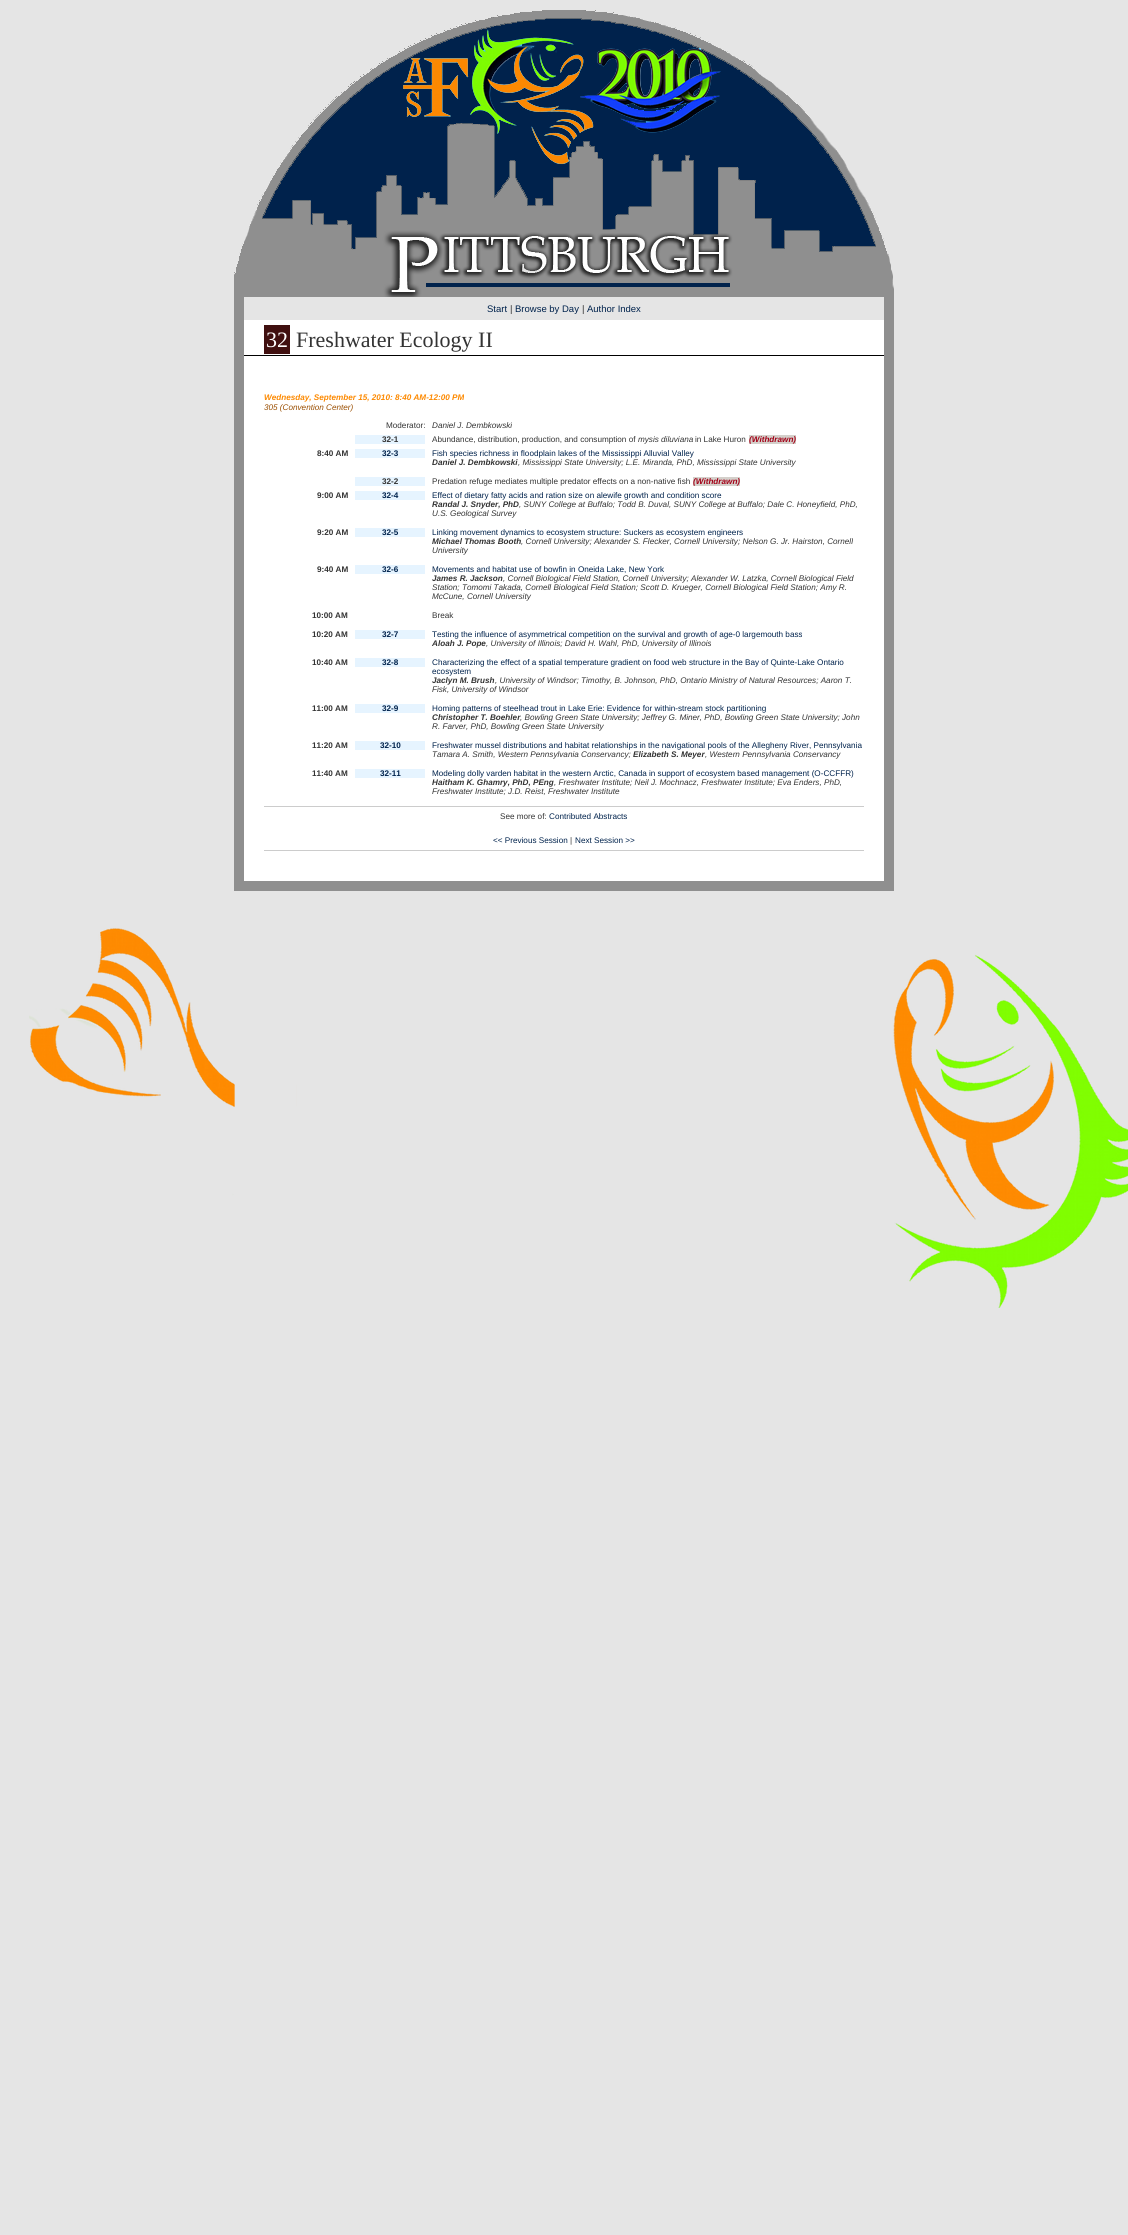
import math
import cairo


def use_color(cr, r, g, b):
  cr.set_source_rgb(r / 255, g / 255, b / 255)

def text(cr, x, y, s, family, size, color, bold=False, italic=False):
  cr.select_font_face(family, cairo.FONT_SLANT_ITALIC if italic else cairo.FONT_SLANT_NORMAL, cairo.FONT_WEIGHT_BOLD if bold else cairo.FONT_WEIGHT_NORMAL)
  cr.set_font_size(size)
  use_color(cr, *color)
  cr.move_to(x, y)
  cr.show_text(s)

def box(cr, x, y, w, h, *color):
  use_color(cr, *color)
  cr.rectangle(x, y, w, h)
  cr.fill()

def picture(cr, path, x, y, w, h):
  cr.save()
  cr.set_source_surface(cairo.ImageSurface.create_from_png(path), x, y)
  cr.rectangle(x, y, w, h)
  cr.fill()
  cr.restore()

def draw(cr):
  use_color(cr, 229, 229, 229)
  cr.paint()
  picture(cr, "img_01.png", 29, 928, 1099, 380)
  picture(cr, "img_02.png", 234, 10, 660, 287)
  box(cr, 244, 320, 640, 561, 255, 255, 255)
  box(cr, 884, 297, 10, 584, 143, 143, 143)
  box(cr, 244, 881, 650, 10, 143, 143, 143)
  box(cr, 234, 297, 10, 594, 143, 143, 143)
  box(cr, 244, 355, 640, 1, 0, 0, 0)
  box(cr, 264, 325, 26, 29, 64, 16, 16)
  box(cr, 355, 435, 70, 9, 230, 244, 255)
  box(cr, 749, 435, 47, 9, 212, 208, 203)
  box(cr, 355, 449, 70, 9, 230, 244, 255)
  box(cr, 355, 477, 70, 9, 230, 244, 255)
  box(cr, 693, 477, 47, 9, 212, 208, 203)
  box(cr, 355, 491, 70, 9, 230, 244, 255)
  box(cr, 355, 528, 70, 9, 230, 244, 255)
  box(cr, 355, 565, 70, 9, 230, 244, 255)
  box(cr, 355, 630, 70, 9, 230, 244, 255)
  box(cr, 355, 658, 70, 9, 230, 244, 255)
  box(cr, 355, 704, 70, 9, 230, 244, 255)
  box(cr, 355, 741, 70, 9, 230, 244, 255)
  box(cr, 355, 769, 70, 9, 230, 244, 255)
  box(cr, 264, 806, 600, 1, 204, 204, 204)
  box(cr, 264, 850, 600, 1, 204, 204, 204)
  text(cr, 487, 312, "Start", "Liberation Sans", 9.5, (0, 34, 76))
  text(cr, 510, 312, "|", "Liberation Sans", 9.5, (51, 51, 51))
  text(cr, 515, 312, "Browse by Day", "Liberation Sans", 9.5, (0, 34, 76))
  text(cr, 582, 312, "|", "Liberation Sans", 9.5, (51, 51, 51))
  text(cr, 587, 312, "Author Index", "Liberation Sans", 9.5, (0, 34, 76))
  text(cr, 266, 347, "32", "Liberation Serif", 22, (255, 255, 255))
  text(cr, 296, 347, "Freshwater Ecology II", "Liberation Serif", 22, (51, 51, 51))
  text(cr, 264, 400, "Wednesday, September 15, 2010: 8:40 AM-12:00 PM", "Liberation Sans", 8.15, (253, 137, 0), bold=True, italic=True)
  text(cr, 264, 410, "305 (Convention Center)", "Liberation Sans", 8.15, (153, 77, 0), italic=True)
  text(cr, 386, 428, "Moderator:", "Liberation Sans", 8.15, (51, 51, 51))
  text(cr, 432, 428, "Daniel J. Dembkowski", "Liberation Sans", 8.15, (51, 51, 51), italic=True)
  text(cr, 382, 442, "32-1", "Liberation Sans", 8.15, (51, 51, 51), bold=True)
  text(cr, 432, 442, "Abundance, distribution, production, and consumption of", "Liberation Sans", 8.15, (51, 51, 51))
  text(cr, 638, 442, "mysis diluviana", "Liberation Sans", 8.15, (51, 51, 51), italic=True)
  text(cr, 695, 442, "in Lake Huron", "Liberation Sans", 8.15, (51, 51, 51))
  text(cr, 749, 442, "(Withdrawn)", "Liberation Sans", 8.15, (163, 0, 23), bold=True, italic=True)
  text(cr, 317, 456, "8:40 AM", "Liberation Sans", 8.15, (51, 51, 51), bold=True)
  text(cr, 382, 456, "32-3", "Liberation Sans", 8.15, (0, 34, 76), bold=True)
  text(cr, 432, 456, "Fish species richness in floodplain lakes of the Mississippi Alluvial Valley", "Liberation Sans", 8.15, (0, 34, 76))
  text(cr, 432, 465, "Daniel J. Dembkowski", "Liberation Sans", 8.15, (51, 51, 51), bold=True, italic=True)
  text(cr, 518, 465, ", Mississippi State University; L.E. Miranda, PhD, Mississippi State University", "Liberation Sans", 8.15, (51, 51, 51), italic=True)
  text(cr, 382, 484, "32-2", "Liberation Sans", 8.15, (51, 51, 51), bold=True)
  text(cr, 432, 484, "Predation refuge mediates multiple predator effects on a non-native fish", "Liberation Sans", 8.15, (51, 51, 51))
  text(cr, 693, 484, "(Withdrawn)", "Liberation Sans", 8.15, (163, 0, 23), bold=True, italic=True)
  text(cr, 317, 498, "9:00 AM", "Liberation Sans", 8.15, (51, 51, 51), bold=True)
  text(cr, 382, 498, "32-4", "Liberation Sans", 8.15, (0, 34, 76), bold=True)
  text(cr, 432, 498, "Effect of dietary fatty acids and ration size on alewife growth and condition score", "Liberation Sans", 8.15, (0, 34, 76))
  text(cr, 432, 507, "Randal J. Snyder, PhD", "Liberation Sans", 8.15, (51, 51, 51), bold=True, italic=True)
  text(cr, 519, 507, ", SUNY College at Buffalo; Todd B. Duval, SUNY College at Buffalo; Dale C. Honeyfield, PhD,", "Liberation Sans", 8.15, (51, 51, 51), italic=True)
  text(cr, 432, 516, "U.S. Geological Survey", "Liberation Sans", 8.15, (51, 51, 51), italic=True)
  text(cr, 317, 535, "9:20 AM", "Liberation Sans", 8.15, (51, 51, 51), bold=True)
  text(cr, 382, 535, "32-5", "Liberation Sans", 8.15, (0, 34, 76), bold=True)
  text(cr, 432, 535, "Linking movement dynamics to ecosystem structure: Suckers as ecosystem engineers", "Liberation Sans", 8.15, (0, 34, 76))
  text(cr, 432, 544, "Michael Thomas Booth", "Liberation Sans", 8.15, (51, 51, 51), bold=True, italic=True)
  text(cr, 521, 544, ", Cornell University; Alexander S. Flecker, Cornell University; Nelson G. Jr. Hairston, Cornell", "Liberation Sans", 8.15, (51, 51, 51), italic=True)
  text(cr, 432, 553, "University", "Liberation Sans", 8.15, (51, 51, 51), italic=True)
  text(cr, 317, 572, "9:40 AM", "Liberation Sans", 8.15, (51, 51, 51), bold=True)
  text(cr, 382, 572, "32-6", "Liberation Sans", 8.15, (0, 34, 76), bold=True)
  text(cr, 432, 572, "Movements and habitat use of bowfin in Oneida Lake, New York", "Liberation Sans", 8.15, (0, 34, 76))
  text(cr, 432, 581, "James R. Jackson", "Liberation Sans", 8.15, (51, 51, 51), bold=True, italic=True)
  text(cr, 503, 581, ", Cornell Biological Field Station, Cornell University; Alexander W. Latzka, Cornell Biological Field", "Liberation Sans", 8.15, (51, 51, 51), italic=True)
  text(cr, 432, 590, "Station; Tomomi Takada, Cornell Biological Field Station; Scott D. Krueger, Cornell Biological Field Station; Amy R.", "Liberation Sans", 8.15, (51, 51, 51), italic=True)
  text(cr, 432, 599, "McCune, Cornell University", "Liberation Sans", 8.15, (51, 51, 51), italic=True)
  text(cr, 312, 618, "10:00 AM", "Liberation Sans", 8.15, (51, 51, 51), bold=True)
  text(cr, 432, 618, "Break", "Liberation Sans", 8.15, (51, 51, 51))
  text(cr, 312, 637, "10:20 AM", "Liberation Sans", 8.15, (51, 51, 51), bold=True)
  text(cr, 382, 637, "32-7", "Liberation Sans", 8.15, (0, 34, 76), bold=True)
  text(cr, 432, 637, "Testing the influence of asymmetrical competition on the survival and growth of age-0 largemouth bass", "Liberation Sans", 8.15, (0, 34, 76))
  text(cr, 432, 646, "Aloah J. Pope", "Liberation Sans", 8.15, (51, 51, 51), bold=True, italic=True)
  text(cr, 486, 646, ", University of Illinois; David H. Wahl, PhD, University of Illinois", "Liberation Sans", 8.15, (51, 51, 51), italic=True)
  text(cr, 312, 665, "10:40 AM", "Liberation Sans", 8.15, (51, 51, 51), bold=True)
  text(cr, 382, 665, "32-8", "Liberation Sans", 8.15, (0, 34, 76), bold=True)
  text(cr, 432, 665, "Characterizing the effect of a spatial temperature gradient on food web structure in the Bay of Quinte-Lake Ontario", "Liberation Sans", 8.15, (0, 34, 76))
  text(cr, 432, 674, "ecosystem", "Liberation Sans", 8.15, (0, 34, 76))
  text(cr, 432, 683, "Jaclyn M. Brush", "Liberation Sans", 8.15, (51, 51, 51), bold=True, italic=True)
  text(cr, 495, 683, ", University of Windsor; Timothy, B. Johnson, PhD, Ontario Ministry of Natural Resources; Aaron T.", "Liberation Sans", 8.15, (51, 51, 51), italic=True)
  text(cr, 432, 692, "Fisk, University of Windsor", "Liberation Sans", 8.15, (51, 51, 51), italic=True)
  text(cr, 312, 711, "11:00 AM", "Liberation Sans", 8.15, (51, 51, 51), bold=True)
  text(cr, 382, 711, "32-9", "Liberation Sans", 8.15, (0, 34, 76), bold=True)
  text(cr, 432, 711, "Homing patterns of steelhead trout in Lake Erie: Evidence for within-stream stock partitioning", "Liberation Sans", 8.15, (0, 34, 76))
  text(cr, 432, 720, "Christopher T. Boehler", "Liberation Sans", 8.15, (51, 51, 51), bold=True, italic=True)
  text(cr, 520, 720, ", Bowling Green State University; Jeffrey G. Miner, PhD, Bowling Green State University; John", "Liberation Sans", 8.15, (51, 51, 51), italic=True)
  text(cr, 432, 729, "R. Farver, PhD, Bowling Green State University", "Liberation Sans", 8.15, (51, 51, 51), italic=True)
  text(cr, 312, 748, "11:20 AM", "Liberation Sans", 8.15, (51, 51, 51), bold=True)
  text(cr, 380, 748, "32-10", "Liberation Sans", 8.15, (0, 34, 76), bold=True)
  text(cr, 432, 748, "Freshwater mussel distributions and habitat relationships in the navigational pools of the Allegheny River, Pennsylvania", "Liberation Sans", 8.15, (0, 34, 76))
  text(cr, 432, 757, "Tamara A. Smith, Western Pennsylvania Conservancy;", "Liberation Sans", 8.15, (51, 51, 51), italic=True)
  text(cr, 633, 757, "Elizabeth S. Meyer", "Liberation Sans", 8.15, (51, 51, 51), bold=True, italic=True)
  text(cr, 705, 757, ", Western Pennsylvania Conservancy", "Liberation Sans", 8.15, (51, 51, 51), italic=True)
  text(cr, 312, 776, "11:40 AM", "Liberation Sans", 8.15, (51, 51, 51), bold=True)
  text(cr, 380, 776, "32-11", "Liberation Sans", 8.15, (0, 34, 76), bold=True)
  text(cr, 432, 776, "Modeling dolly varden habitat in the western Arctic, Canada in support of ecosystem based management (O-CCFFR)", "Liberation Sans", 8.15, (0, 34, 76))
  text(cr, 432, 785, "Haitham K. Ghamry, PhD, PEng", "Liberation Sans", 8.15, (51, 51, 51), bold=True, italic=True)
  text(cr, 554, 785, ", Freshwater Institute; Neil J. Mochnacz, Freshwater Institute; Eva Enders, PhD,", "Liberation Sans", 8.15, (51, 51, 51), italic=True)
  text(cr, 432, 794, "Freshwater Institute; J.D. Reist, Freshwater Institute", "Liberation Sans", 8.15, (51, 51, 51), italic=True)
  text(cr, 500, 819, "See more of:", "Liberation Sans", 8.15, (51, 51, 51))
  text(cr, 549, 819, "Contributed Abstracts", "Liberation Sans", 8.15, (0, 34, 76))
  text(cr, 493, 843, "<< Previous Session", "Liberation Sans", 8.15, (0, 34, 76))
  text(cr, 570, 843, "|", "Liberation Sans", 8.15, (51, 51, 51))
  text(cr, 575, 843, "Next Session >>", "Liberation Sans", 8.15, (0, 34, 76))


surface = cairo.ImageSurface(cairo.FORMAT_RGB24, 1128, 2235)
cr = cairo.Context(surface)
options = cairo.FontOptions()
options.set_hint_metrics(cairo.HINT_METRICS_OFF)
options.set_hint_style(cairo.HINT_STYLE_NONE)
cr.set_font_options(options)
cr.set_miter_limit(4)
draw(cr)
surface.write_to_png("out.png")
